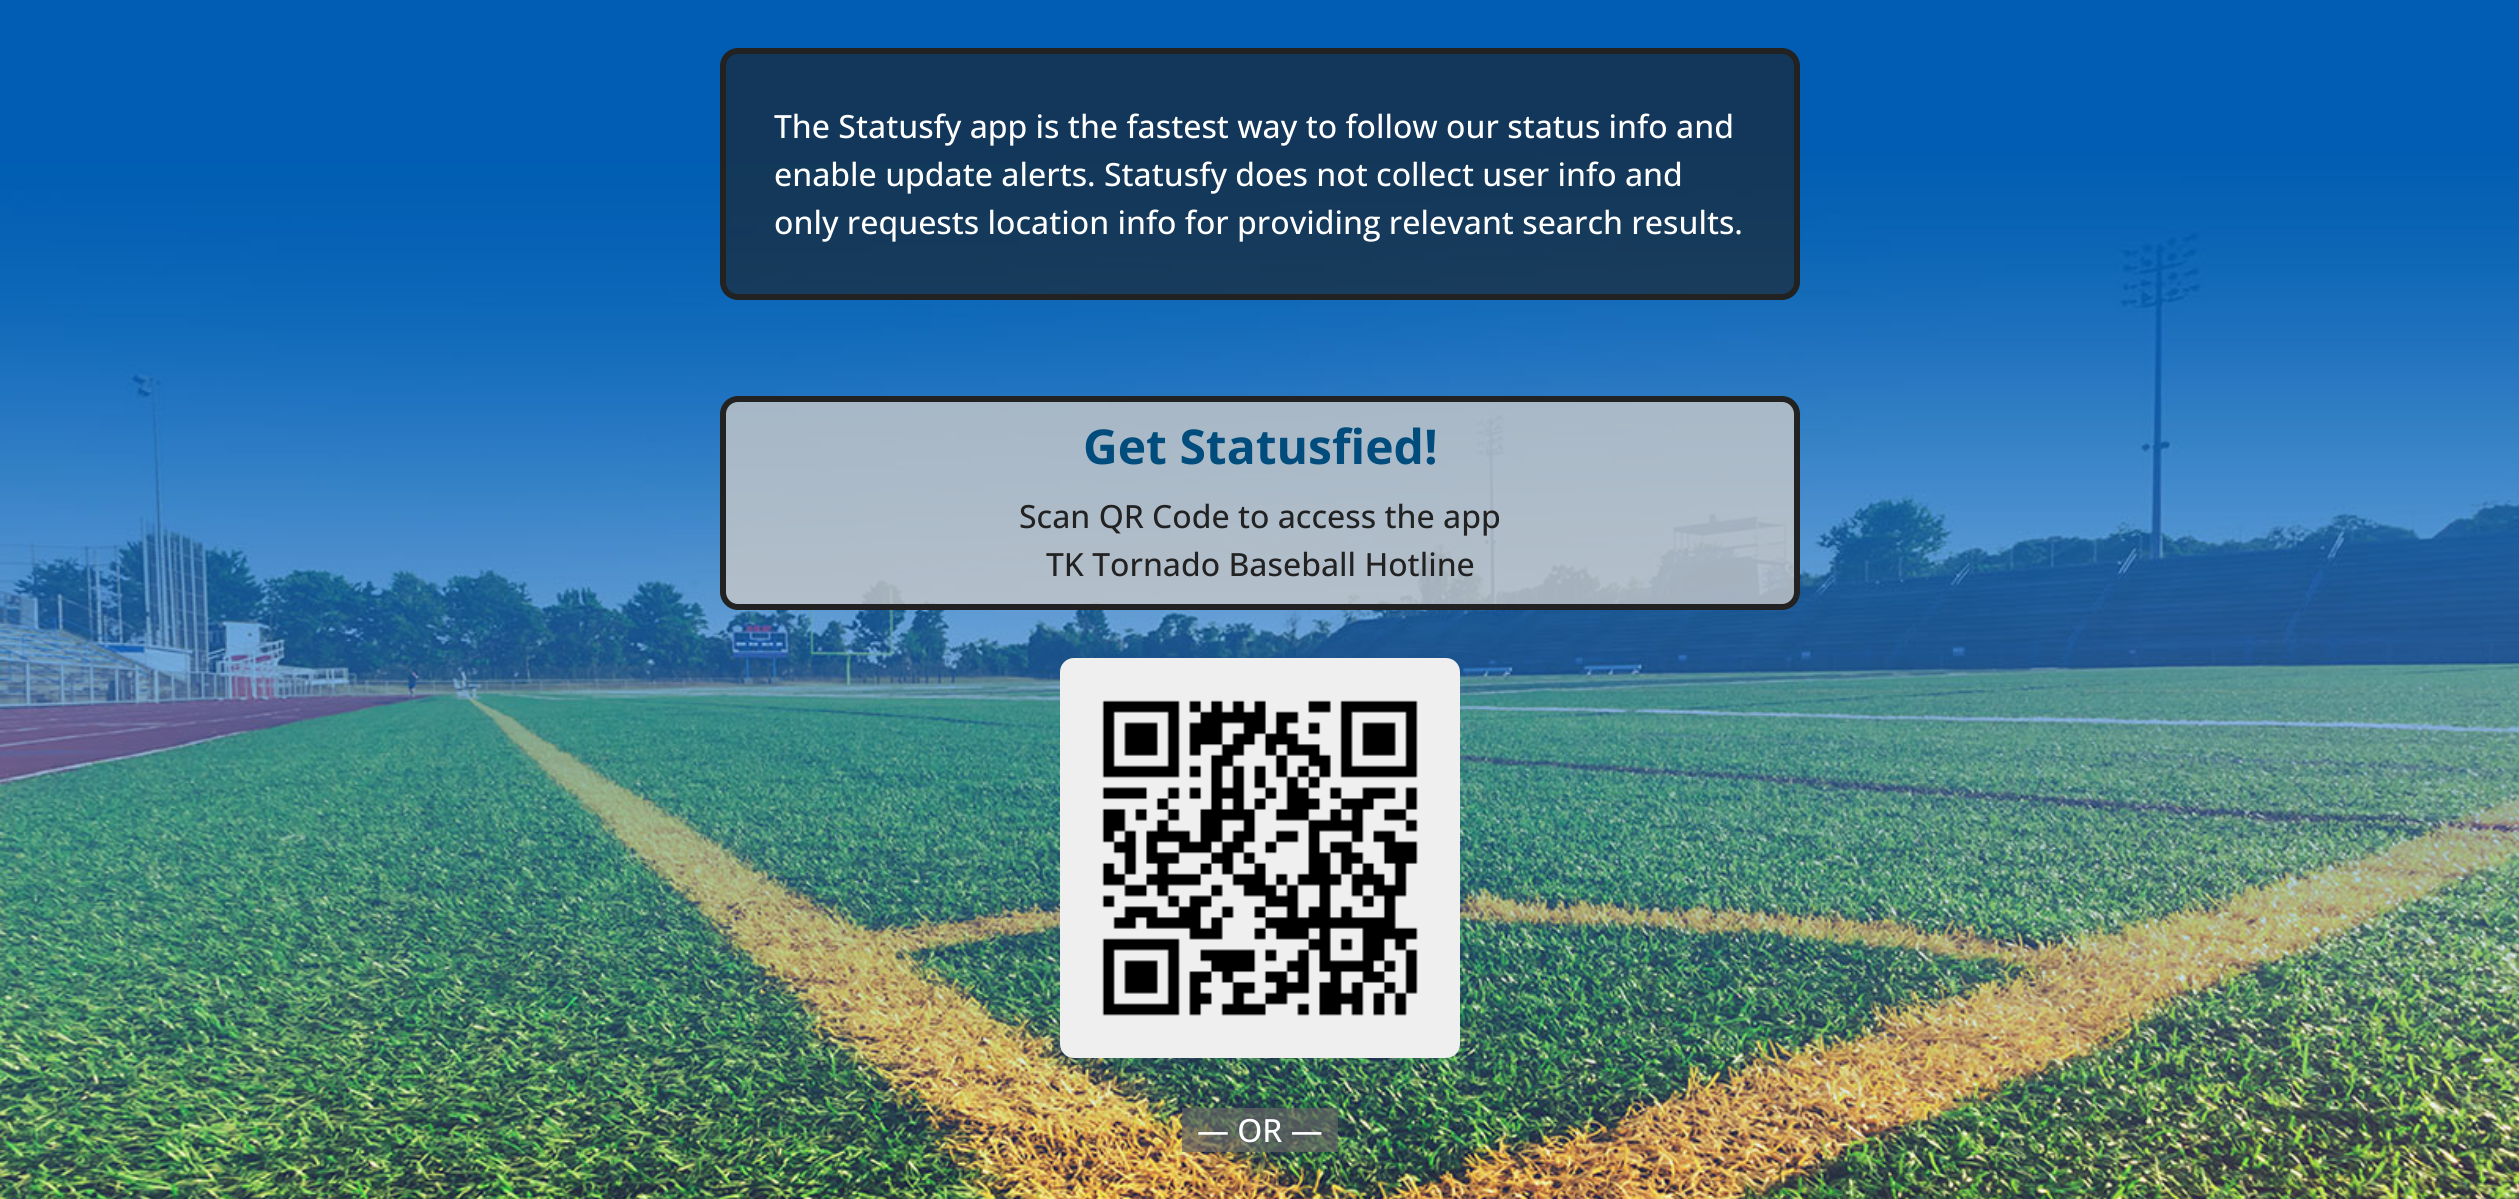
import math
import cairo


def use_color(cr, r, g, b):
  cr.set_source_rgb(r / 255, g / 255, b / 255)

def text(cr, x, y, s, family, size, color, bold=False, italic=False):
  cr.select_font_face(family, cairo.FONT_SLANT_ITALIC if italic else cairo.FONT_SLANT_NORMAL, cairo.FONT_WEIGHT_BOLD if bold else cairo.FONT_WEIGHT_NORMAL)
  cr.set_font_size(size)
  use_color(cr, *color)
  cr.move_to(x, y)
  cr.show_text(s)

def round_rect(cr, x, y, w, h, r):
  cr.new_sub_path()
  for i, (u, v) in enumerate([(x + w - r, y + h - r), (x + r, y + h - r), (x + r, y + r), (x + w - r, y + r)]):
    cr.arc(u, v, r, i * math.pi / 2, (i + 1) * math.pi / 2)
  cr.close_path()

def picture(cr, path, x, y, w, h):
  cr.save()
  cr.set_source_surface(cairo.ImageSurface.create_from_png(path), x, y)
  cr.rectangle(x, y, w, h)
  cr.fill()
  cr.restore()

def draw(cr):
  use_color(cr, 255, 255, 255)
  cr.paint()
  picture(cr, "img_01.png", 0, 0, 2519, 1199)
  cr.set_source_rgba(0.118, 0.118, 0.118, 0.6)
  round_rect(cr, 723, 51, 1074, 246, 15)
  cr.fill_preserve()
  use_color(cr, 34, 34, 34)
  cr.set_line_width(6)
  cr.stroke()
  cr.set_source_rgba(0.784, 0.784, 0.784, 0.8)
  round_rect(cr, 723, 399, 1074, 208, 15)
  cr.fill_preserve()
  use_color(cr, 34, 34, 34)
  cr.stroke()
  use_color(cr, 239, 239, 239)
  round_rect(cr, 1060, 658, 400, 400, 14)
  cr.fill()
  picture(cr, "img_02.png", 1102, 700, 316, 316)
  cr.set_source_rgba(0.392, 0.392, 0.392, 0.7)
  cr.rectangle(1182, 1108, 156, 44)
  cr.fill()
  text(cr, 774, 138, "The Statusfy app is the fastest way to follow our status info and", "Open Sans Medium", 32, (255, 255, 255))
  text(cr, 774, 186, "enable update alerts. Statusfy does not collect user info and", "Open Sans Medium", 32, (255, 255, 255))
  text(cr, 774, 234, "only requests location info for providing relevant search results.", "Open Sans Medium", 32, (255, 255, 255))
  text(cr, 1083, 464, "Get Statusfied!", "Open Sans", 48, (0, 76, 125), bold=True)
  text(cr, 1019, 528, "Scan QR Code to access the app", "Open Sans Medium", 32, (34, 34, 34))
  text(cr, 1046, 576, "TK Tornado Baseball Hotline", "Open Sans Medium", 32, (34, 34, 34))
  text(cr, 1197, 1142, "— OR —", "Open Sans Medium", 32, (255, 255, 255))


surface = cairo.ImageSurface(cairo.FORMAT_RGB24, 2519, 1199)
cr = cairo.Context(surface)
options = cairo.FontOptions()
options.set_hint_metrics(cairo.HINT_METRICS_OFF)
options.set_hint_style(cairo.HINT_STYLE_NONE)
cr.set_font_options(options)
cr.set_miter_limit(4)
draw(cr)
surface.write_to_png("out.png")
